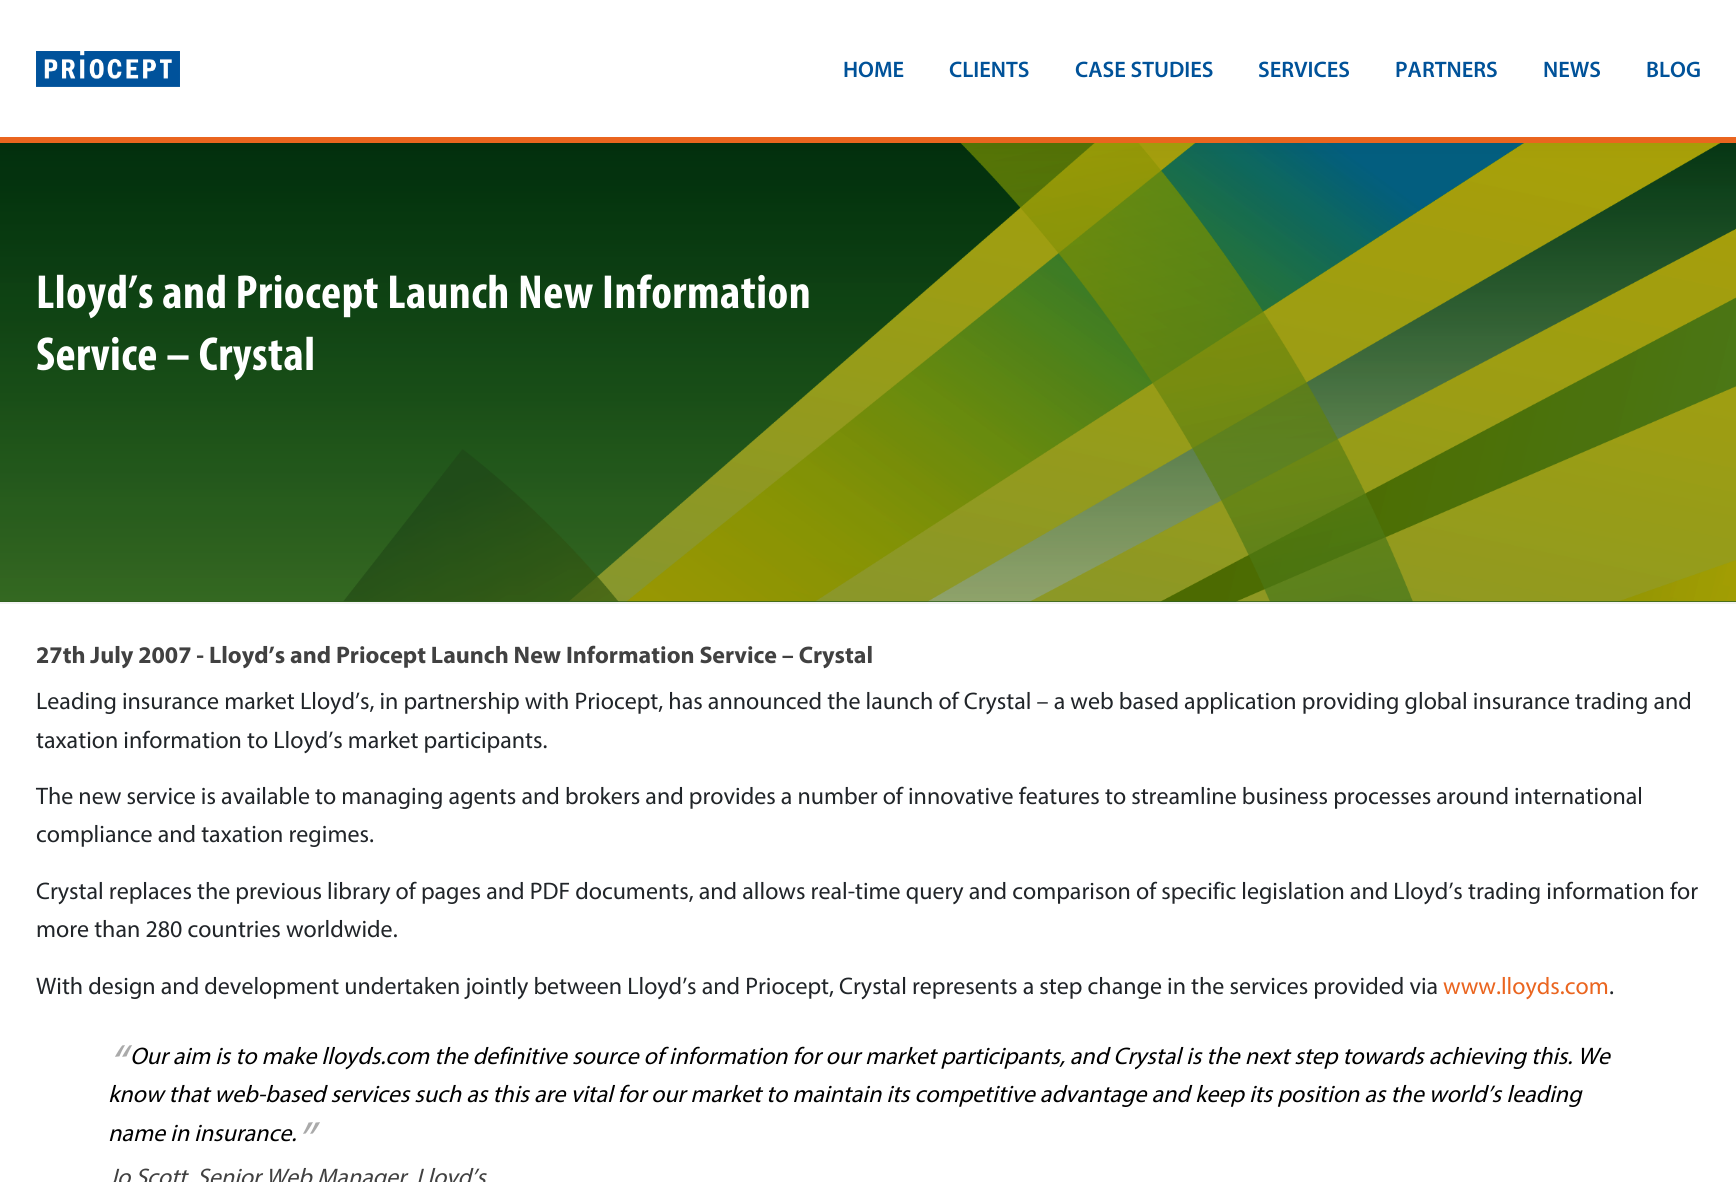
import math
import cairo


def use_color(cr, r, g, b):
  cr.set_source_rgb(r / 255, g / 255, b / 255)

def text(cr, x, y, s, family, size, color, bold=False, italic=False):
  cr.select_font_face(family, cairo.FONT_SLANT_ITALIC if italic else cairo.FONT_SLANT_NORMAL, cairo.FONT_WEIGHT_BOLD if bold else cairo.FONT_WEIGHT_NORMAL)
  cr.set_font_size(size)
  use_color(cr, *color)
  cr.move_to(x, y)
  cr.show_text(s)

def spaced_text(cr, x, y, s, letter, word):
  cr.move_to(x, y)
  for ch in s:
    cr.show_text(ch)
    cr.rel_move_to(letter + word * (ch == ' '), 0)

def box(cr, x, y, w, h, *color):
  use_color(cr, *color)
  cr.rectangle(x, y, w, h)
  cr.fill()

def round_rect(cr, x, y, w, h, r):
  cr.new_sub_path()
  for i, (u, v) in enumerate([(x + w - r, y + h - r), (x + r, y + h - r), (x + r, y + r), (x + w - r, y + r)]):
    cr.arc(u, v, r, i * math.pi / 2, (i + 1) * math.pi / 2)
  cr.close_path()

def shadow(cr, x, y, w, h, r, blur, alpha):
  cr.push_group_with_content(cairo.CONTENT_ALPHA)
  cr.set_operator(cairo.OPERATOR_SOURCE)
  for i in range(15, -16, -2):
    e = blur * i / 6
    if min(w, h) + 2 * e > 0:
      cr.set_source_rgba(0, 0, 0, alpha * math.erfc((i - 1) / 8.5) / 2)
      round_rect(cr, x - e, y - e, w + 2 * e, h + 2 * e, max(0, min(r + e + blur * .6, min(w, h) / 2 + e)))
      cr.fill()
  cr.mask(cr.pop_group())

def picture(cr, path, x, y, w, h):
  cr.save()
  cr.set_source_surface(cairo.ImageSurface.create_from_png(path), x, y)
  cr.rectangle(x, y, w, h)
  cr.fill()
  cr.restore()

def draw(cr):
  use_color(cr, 255, 255, 255)
  cr.paint()
  box(cr, 0, 601, 1736, 1, 45, 95, 30)
  picture(cr, "img_02.png", 0, 143, 1736, 459)
  use_color(cr, 0, 0, 0)
  shadow(cr, 0, 3, 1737, 138, 0, 11, 0.05)
  box(cr, 0, 0, 1736, 137, 255, 255, 255)
  picture(cr, "img_01.png", 36, 51, 144, 36)
  box(cr, 0, 137, 1736, 6, 234, 101, 31)
  box(cr, 0, 602, 1736, 2, 243, 243, 243)
  text(cr, 843, 77, "HOME", "Myriad SemiBold", 22.5, (0, 82, 153))
  text(cr, 949, 77, "CLIENTS", "Myriad SemiBold", 22.5, (0, 82, 153))
  text(cr, 1075, 77, "CASE STUDIES", "Myriad SemiBold", 22.5, (0, 82, 153))
  text(cr, 1258, 77, "SERVICES", "Myriad SemiBold", 22.5, (0, 82, 153))
  text(cr, 1395, 77, "PARTNERS", "Myriad SemiBold", 22.5, (0, 82, 153))
  text(cr, 1543, 77, "NEWS", "Myriad SemiBold", 22.5, (0, 82, 153))
  text(cr, 1646, 77, "BLOG", "Myriad SemiBold", 22.5, (0, 82, 153))
  cr.select_font_face("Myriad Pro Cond", cairo.FONT_SLANT_NORMAL, cairo.FONT_WEIGHT_BOLD)
  cr.set_font_size(48)
  use_color(cr, 255, 255, 255)
  spaced_text(cr, 36, 308, "Lloyd’s and Priocept Launch New Information", 0.5, 0)
  spaced_text(cr, 36, 370, "Service – Crystal", 0.5, 0)
  text(cr, 36, 663, "27th July 2007 - Lloyd’s and Priocept Launch New Information Service – Crystal", "Myriad", 24, (65, 65, 65), bold=True)
  text(cr, 36, 709, "Leading insurance market Lloyd’s, in partnership with Priocept, has announced the launch of Crystal – a web based application providing global insurance trading and", "Myriad", 24, (33, 37, 41))
  text(cr, 36, 748, "taxation information to Lloyd’s market participants.", "Myriad", 24, (33, 37, 41))
  text(cr, 36, 804, "The new service is available to managing agents and brokers and provides a number of innovative features to streamline business processes around international", "Myriad", 24, (33, 37, 41))
  text(cr, 36, 842, "compliance and taxation regimes.", "Myriad", 24, (33, 37, 41))
  text(cr, 36, 899, "Crystal replaces the previous library of pages and PDF documents, and allows real-time query and comparison of specific legislation and Lloyd’s trading information for", "Myriad", 24, (33, 37, 41))
  text(cr, 36, 937, "more than 280 countries worldwide.", "Myriad", 24, (33, 37, 41))
  text(cr, 36, 994, "With design and development undertaken jointly between Lloyd’s and Priocept, Crystal represents a step change in the services provided via", "Myriad", 24, (33, 37, 41))
  text(cr, 1443, 994, "www.lloyds.com", "Myriad", 24, (234, 101, 31))
  text(cr, 1609, 994, ".", "Myriad", 24, (33, 37, 41))
  text(cr, 130, 1064, "Our aim is to make lloyds.com the definitive source of information for our market participants, and Crystal is the next step towards achieving this. We", "Myriad", 24, (0, 0, 0), italic=True)
  text(cr, 108, 1078, "“", "Myriad", 48, (170, 170, 170), italic=True)
  text(cr, 108, 1102, "know that web-based services such as this are vital for our market to maintain its competitive advantage and keep its position as the world’s leading", "Myriad", 24, (0, 0, 0), italic=True)
  text(cr, 108, 1141, "name in insurance.", "Myriad", 24, (0, 0, 0), italic=True)
  text(cr, 296, 1155, "”", "Myriad", 48, (170, 170, 170), italic=True)
  text(cr, 108, 1185, "Jo Scott, Senior Web Manager, Lloyd’s", "Myriad", 24, (65, 65, 65), italic=True)


surface = cairo.ImageSurface(cairo.FORMAT_RGB24, 1736, 1182)
cr = cairo.Context(surface)
options = cairo.FontOptions()
options.set_hint_metrics(cairo.HINT_METRICS_OFF)
options.set_hint_style(cairo.HINT_STYLE_NONE)
cr.set_font_options(options)
cr.set_miter_limit(4)
draw(cr)
surface.write_to_png("out.png")
